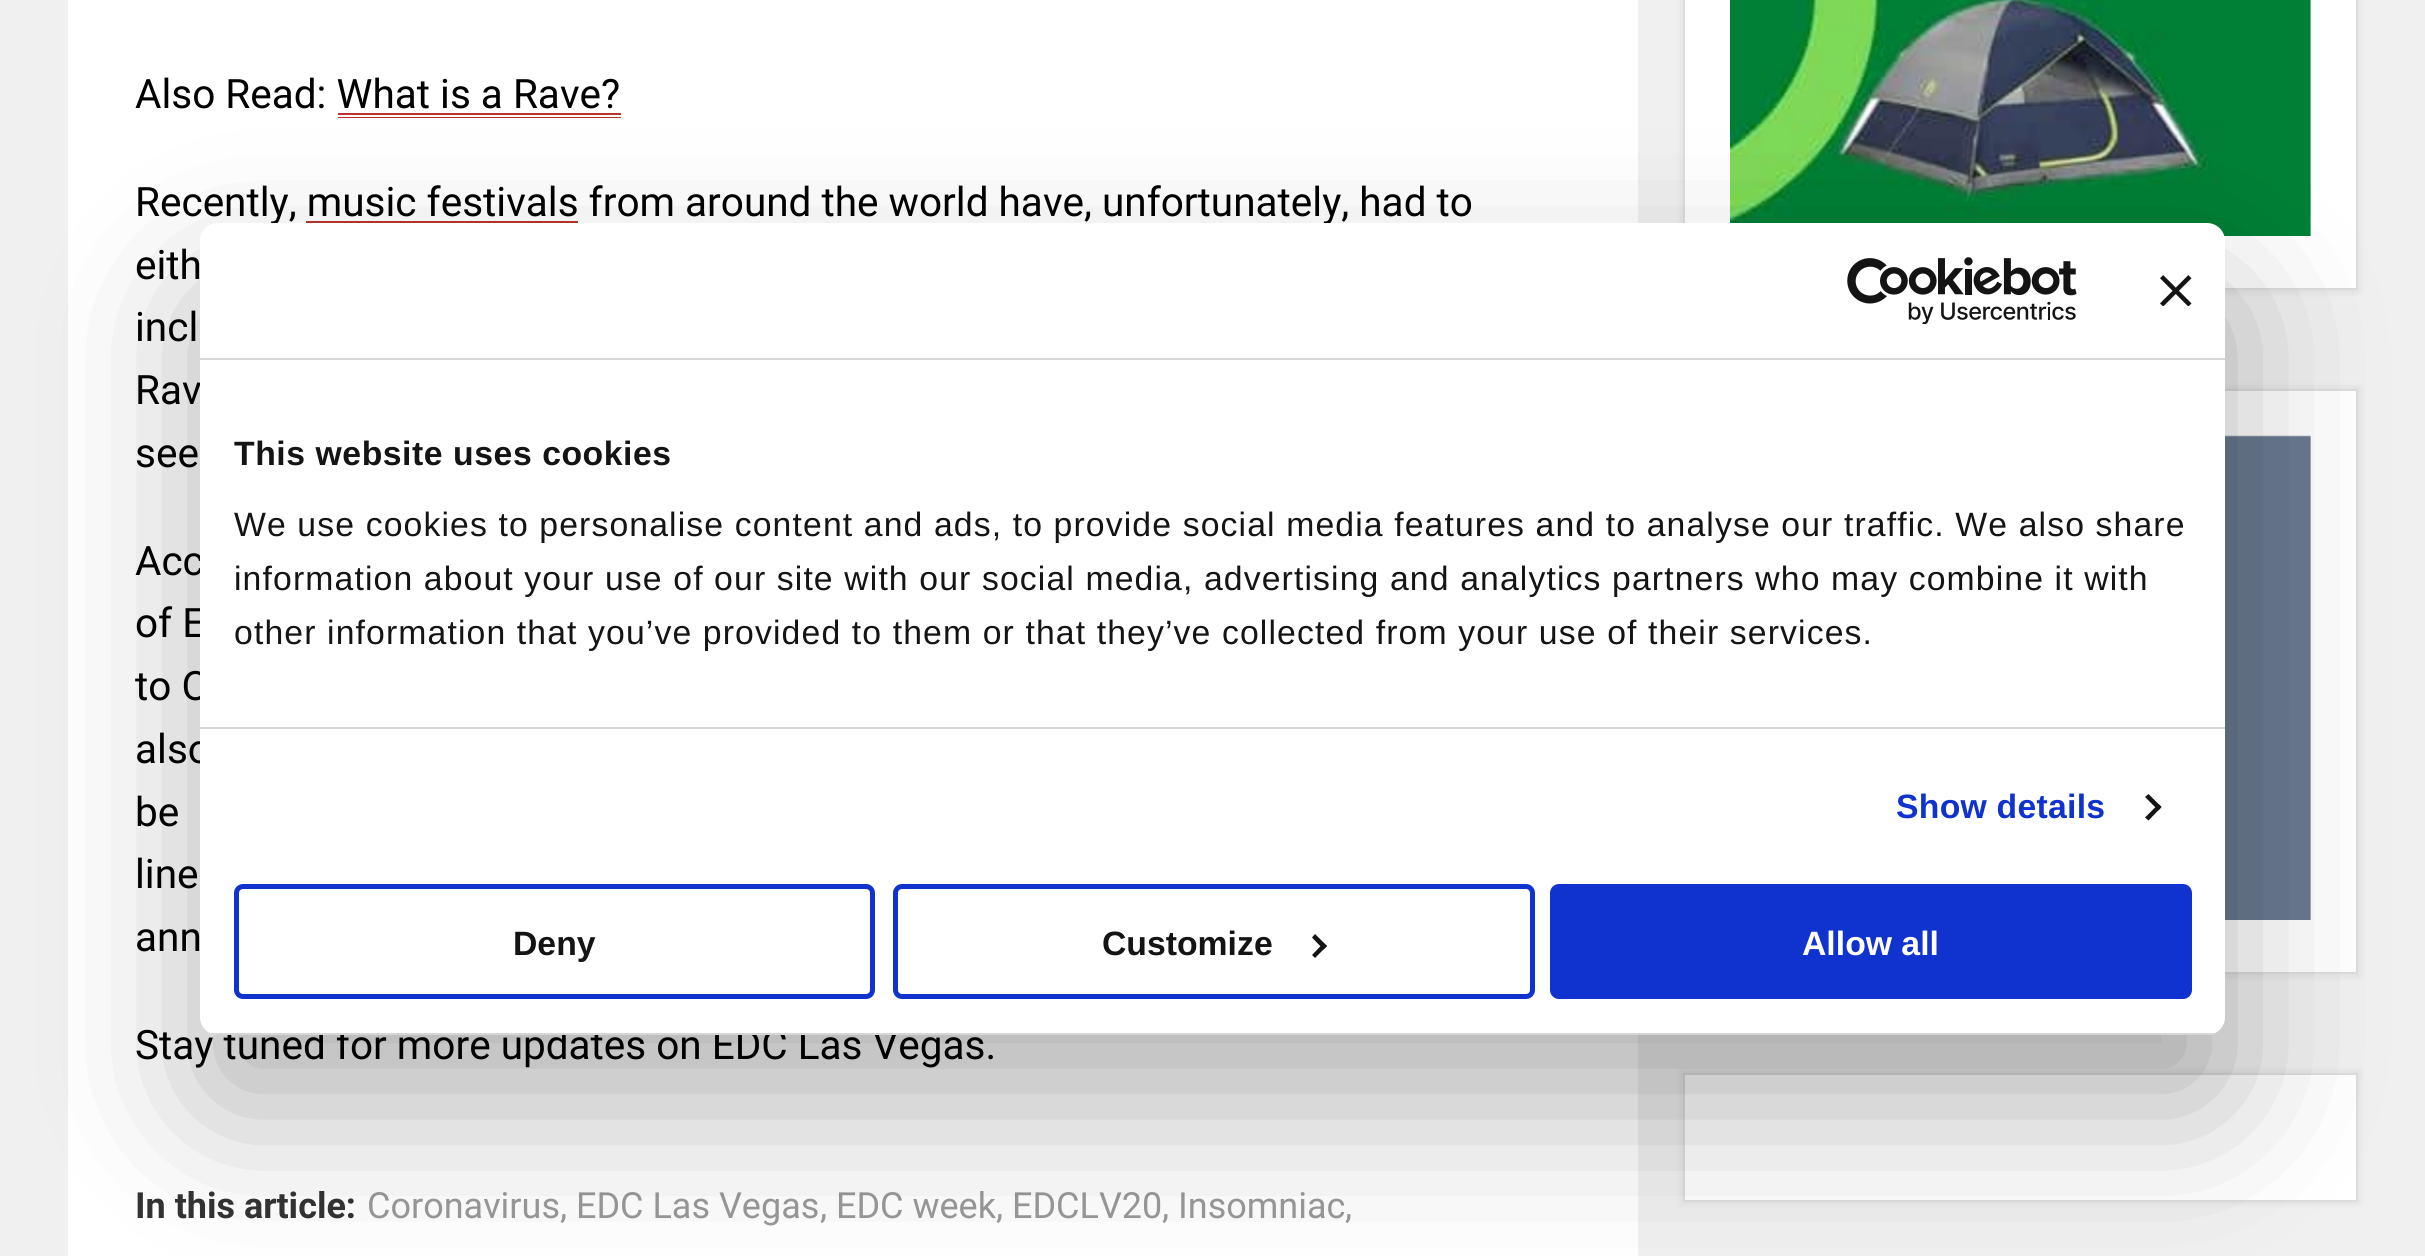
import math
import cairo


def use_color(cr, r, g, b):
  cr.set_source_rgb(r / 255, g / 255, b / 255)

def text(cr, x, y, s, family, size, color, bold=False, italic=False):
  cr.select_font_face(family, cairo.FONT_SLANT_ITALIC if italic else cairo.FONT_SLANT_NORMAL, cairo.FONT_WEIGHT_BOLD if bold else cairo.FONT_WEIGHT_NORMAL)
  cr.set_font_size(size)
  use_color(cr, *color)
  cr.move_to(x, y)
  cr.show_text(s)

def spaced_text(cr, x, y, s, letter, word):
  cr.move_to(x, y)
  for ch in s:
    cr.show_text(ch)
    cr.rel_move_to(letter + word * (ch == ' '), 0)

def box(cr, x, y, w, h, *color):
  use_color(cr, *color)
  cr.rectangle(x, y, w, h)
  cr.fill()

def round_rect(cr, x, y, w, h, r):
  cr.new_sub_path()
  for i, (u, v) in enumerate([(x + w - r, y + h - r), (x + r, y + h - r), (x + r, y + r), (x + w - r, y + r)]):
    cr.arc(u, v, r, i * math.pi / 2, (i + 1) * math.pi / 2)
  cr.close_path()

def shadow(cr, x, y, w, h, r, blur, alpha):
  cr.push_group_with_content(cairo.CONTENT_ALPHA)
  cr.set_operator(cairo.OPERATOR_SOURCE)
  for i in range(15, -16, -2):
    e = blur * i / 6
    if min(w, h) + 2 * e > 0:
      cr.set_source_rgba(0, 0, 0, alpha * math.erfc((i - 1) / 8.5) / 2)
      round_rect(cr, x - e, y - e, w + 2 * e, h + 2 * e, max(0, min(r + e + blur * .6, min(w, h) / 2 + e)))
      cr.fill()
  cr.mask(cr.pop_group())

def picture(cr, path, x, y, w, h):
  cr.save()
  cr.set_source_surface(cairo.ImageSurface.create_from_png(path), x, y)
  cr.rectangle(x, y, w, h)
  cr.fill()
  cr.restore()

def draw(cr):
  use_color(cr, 240, 240, 240)
  cr.paint()
  box(cr, 68, 0, 1570, 1256, 255, 255, 255)
  box(cr, 338, 113, 283, 5, 187, 51, 47)
  box(cr, 338, 115, 283, 2, 255, 255, 255)
  use_color(cr, 0, 0, 0)
  shadow(cr, 1681, -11, 679, 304, 0, 3.5, 0.06)
  use_color(cr, 255, 255, 255)
  cr.rectangle(1684, -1, 673, 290)
  cr.fill_preserve()
  use_color(cr, 221, 221, 221)
  cr.stroke()
  picture(cr, "img_01.png", 1730, 0, 581, 236)
  use_color(cr, 0, 0, 0)
  shadow(cr, 1681, 387, 679, 590, 0, 3.5, 0.06)
  box(cr, 2225, 391, 131, 581, 255, 255, 255)
  cr.rectangle(1684, 390, 673, 583)
  use_color(cr, 221, 221, 221)
  cr.stroke()
  picture(cr, "img_02.png", 2225, 435, 86, 485)
  use_color(cr, 0, 0, 0)
  shadow(cr, 1681, 1071, 679, 133, 0, 3.5, 0.06)
  use_color(cr, 255, 255, 255)
  cr.rectangle(1684, 1074, 673, 127)
  cr.fill_preserve()
  use_color(cr, 221, 221, 221)
  cr.stroke()
  text(cr, 135, 108, "Also Read: What is a Rave?", "Roboto", 40.5, (0, 0, 0))
  text(cr, 135, 216, "Recently, music festivals from around the world have, unfortunately, had to", "Roboto", 40.5, (0, 0, 0))
  box(cr, 306, 221, 272, 2, 187, 51, 47)
  text(cr, 135, 279, "eith", "Roboto", 40.5, (0, 0, 0))
  text(cr, 135, 341, "incl", "Roboto", 40.5, (0, 0, 0))
  text(cr, 135, 404, "Rav", "Roboto", 40.5, (0, 0, 0))
  text(cr, 135, 467, "see", "Roboto", 40.5, (0, 0, 0))
  text(cr, 135, 575, "Acc", "Roboto", 40.5, (0, 0, 0))
  text(cr, 135, 637, "of E", "Roboto", 40.5, (0, 0, 0))
  text(cr, 135, 700, "to O", "Roboto", 40.5, (0, 0, 0))
  text(cr, 135, 763, "also", "Roboto", 40.5, (0, 0, 0))
  text(cr, 135, 826, "be", "Roboto", 40.5, (0, 0, 0))
  text(cr, 135, 888, "line", "Roboto", 40.5, (0, 0, 0))
  text(cr, 135, 951, "ann", "Roboto", 40.5, (0, 0, 0))
  text(cr, 135, 1059, "Stay tuned for more updates on EDC Las Vegas.", "Roboto", 40.5, (0, 0, 0))
  text(cr, 135, 1218, "In this article:", "Roboto", 36, (51, 51, 51), bold=True)
  text(cr, 367, 1218, "Coronavirus", "Roboto", 36, (153, 153, 153))
  text(cr, 560, 1218, ", EDC Las Vegas", "Roboto", 36, (153, 153, 153))
  text(cr, 820, 1218, ", EDC week", "Roboto", 36, (153, 153, 153))
  text(cr, 996, 1218, ", EDCLV20", "Roboto", 36, (153, 153, 153))
  text(cr, 1162, 1218, ", Insomniac", "Roboto", 36, (153, 153, 153))
  text(cr, 1345, 1218, ",", "Roboto", 36, (153, 153, 153))
  use_color(cr, 0, 0, 0)
  shadow(cr, 200, 295, 2025, 812, 18, 76.5, 0.3)
  use_color(cr, 255, 255, 255)
  round_rect(cr, 200, 223, 2025, 812, 18)
  cr.fill()
  box(cr, 200, 358, 2025, 2, 214, 214, 214)
  picture(cr, "img_03.png", 1847, 257, 230, 67)
  picture(cr, "img_04.png", 2160, 275, 32, 31)
  box(cr, 200, 727, 2025, 2, 214, 214, 214)
  cr.select_font_face("Liberation Sans", cairo.FONT_SLANT_NORMAL, cairo.FONT_WEIGHT_BOLD)
  cr.set_font_size(33.75)
  use_color(cr, 20, 20, 20)
  spaced_text(cr, 234, 465, "This website uses cookies", 0.55, 0)
  cr.select_font_face("Liberation Sans")
  spaced_text(cr, 234, 536, "We use cookies to personalise content and ads, to provide social media features and to analyse our traffic. We also share", 1.12, 0)
  spaced_text(cr, 234, 590, "information about your use of our site with our social media, advertising and analytics partners who may combine it with", 1.12, 0)
  spaced_text(cr, 234, 644, "other information that you’ve provided to them or that they’ve collected from your use of their services.", 1.12, 0)
  cr.select_font_face("Liberation Sans", cairo.FONT_SLANT_NORMAL, cairo.FONT_WEIGHT_BOLD)
  use_color(cr, 16, 50, 207)
  spaced_text(cr, 1896, 818, "Show details", 0.25, 0)
  use_color(cr, 20, 20, 20)
  cr.new_path()
  cr.move_to(2148.5, 794)
  cr.line_to(2161.5, 807)
  cr.line_to(2158.5, 810.5)
  cr.line_to(2145, 797)
  cr.close_path()
  cr.fill()
  cr.new_path()
  cr.move_to(2158.5, 804)
  cr.line_to(2161.5, 807)
  cr.line_to(2148.5, 820.5)
  cr.line_to(2145, 817.5)
  cr.close_path()
  cr.fill()
  cr.save()
  round_rect(cr, 200, 223, 2025, 812, 18)
  cr.clip()
  box(cr, 210, 1033, 2005, 2, 214, 214, 214)
  cr.restore()
  round_rect(cr, 236.5, 886.5, 636, 110, 6.5)
  use_color(cr, 16, 50, 207)
  cr.set_line_width(5)
  cr.stroke()
  text(cr, 513, 955, "Deny", "Liberation Sans", 33.75, (20, 20, 20), bold=True)
  round_rect(cr, 895.5, 886.5, 637, 110, 6.5)
  use_color(cr, 16, 50, 207)
  cr.stroke()
  text(cr, 1102, 955, "Customize", "Liberation Sans", 33.75, (20, 20, 20), bold=True)
  cr.new_path()
  cr.move_to(1315, 934)
  cr.line_to(1327, 946)
  cr.line_to(1323.5, 949.5)
  cr.line_to(1312, 937.5)
  cr.close_path()
  cr.fill()
  cr.new_path()
  cr.move_to(1323.5, 943)
  cr.line_to(1327, 946)
  cr.line_to(1315, 958)
  cr.line_to(1312, 955)
  cr.close_path()
  cr.fill()
  use_color(cr, 16, 50, 207)
  round_rect(cr, 1552.5, 886.5, 637, 110, 6.5)
  cr.fill_preserve()
  cr.stroke()
  text(cr, 1802, 955, "Allow all", "Liberation Sans", 33.75, (255, 255, 255), bold=True)


surface = cairo.ImageSurface(cairo.FORMAT_RGB24, 2425, 1256)
cr = cairo.Context(surface)
options = cairo.FontOptions()
options.set_hint_metrics(cairo.HINT_METRICS_OFF)
options.set_hint_style(cairo.HINT_STYLE_NONE)
cr.set_font_options(options)
cr.set_miter_limit(4)
draw(cr)
surface.write_to_png("out.png")
